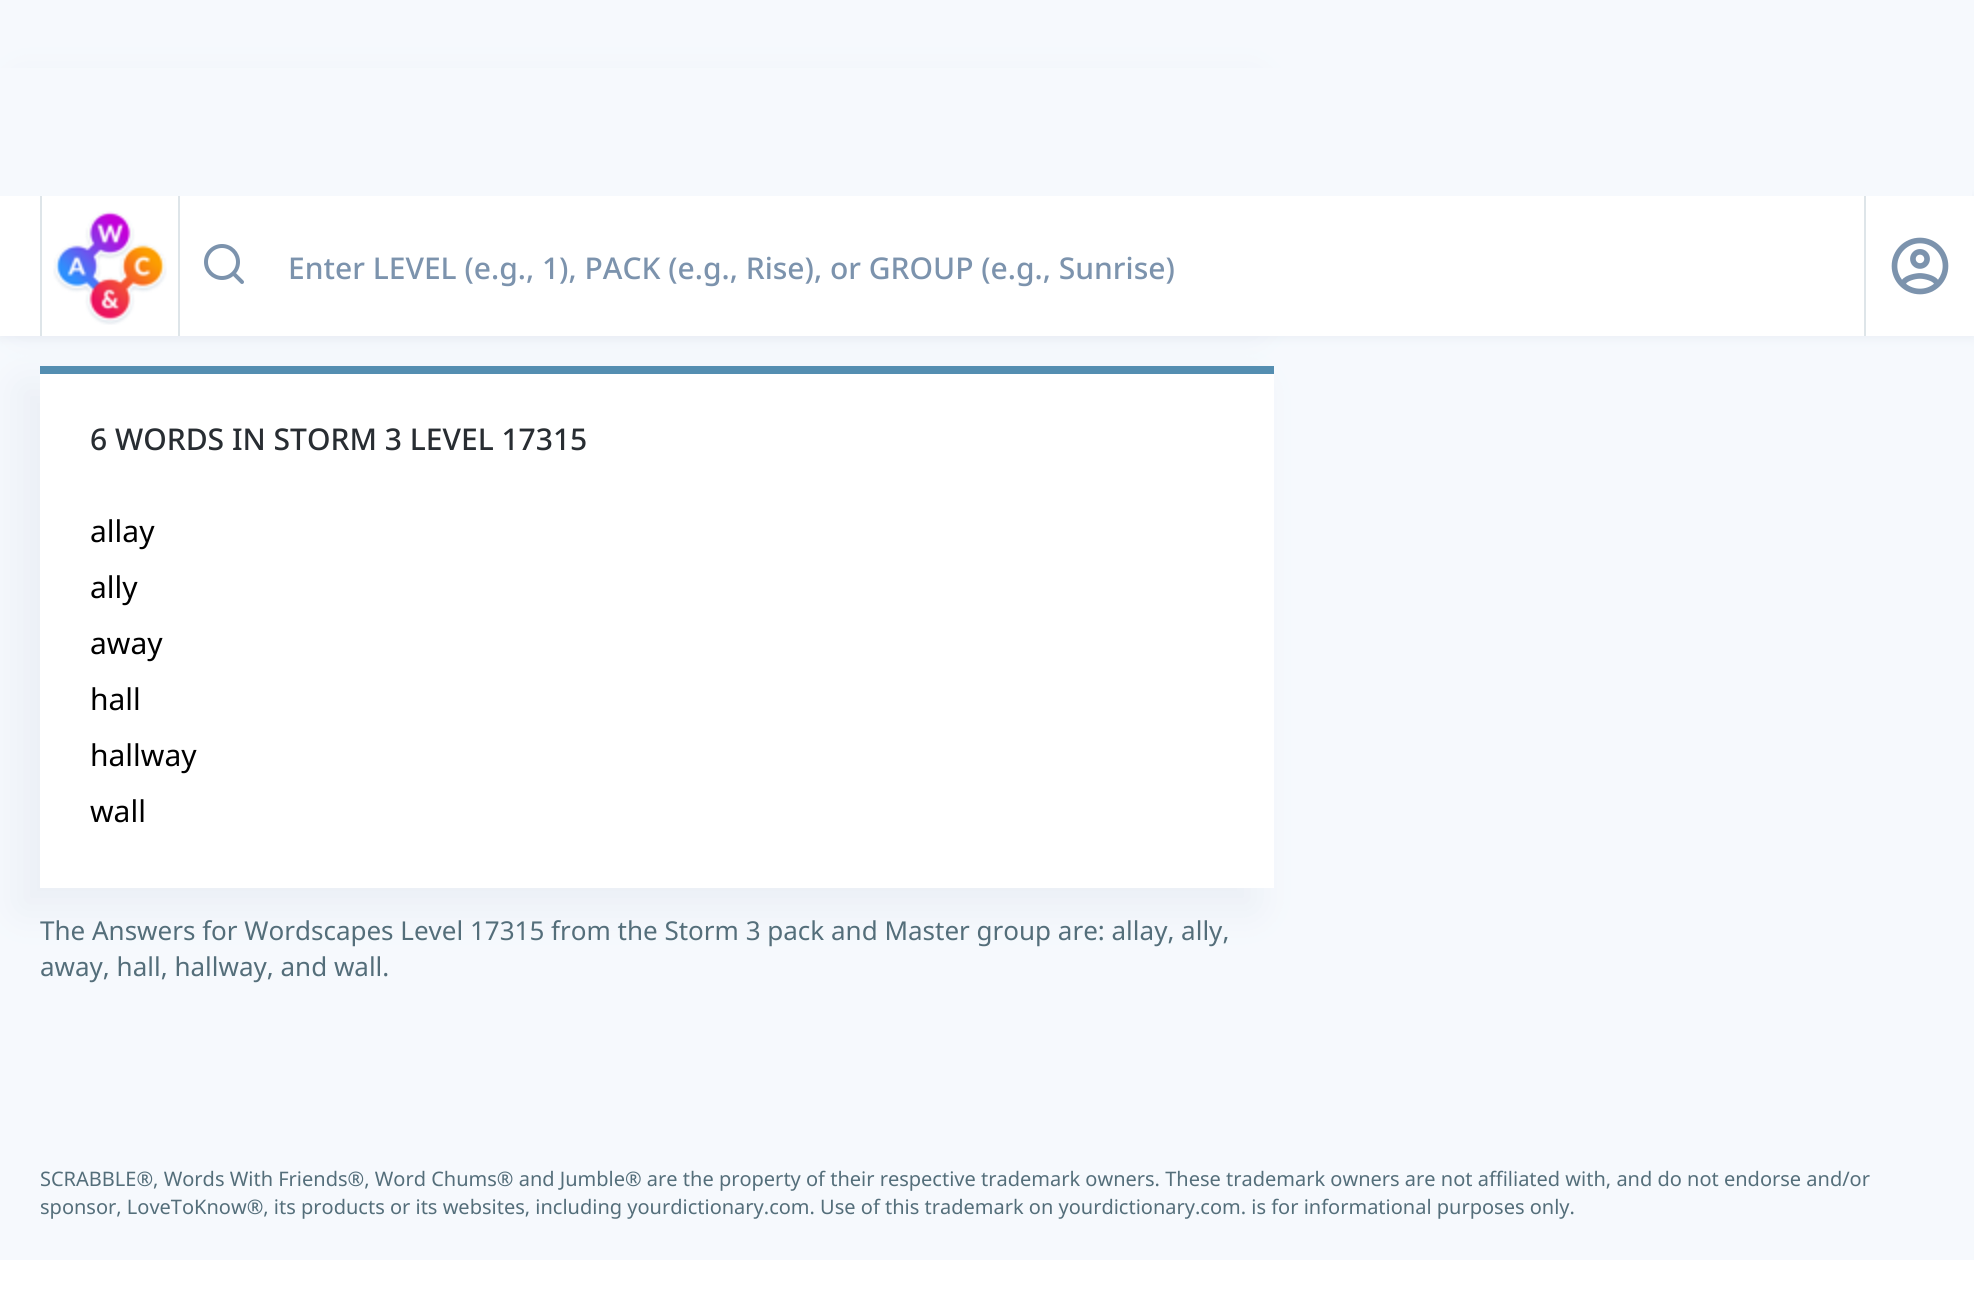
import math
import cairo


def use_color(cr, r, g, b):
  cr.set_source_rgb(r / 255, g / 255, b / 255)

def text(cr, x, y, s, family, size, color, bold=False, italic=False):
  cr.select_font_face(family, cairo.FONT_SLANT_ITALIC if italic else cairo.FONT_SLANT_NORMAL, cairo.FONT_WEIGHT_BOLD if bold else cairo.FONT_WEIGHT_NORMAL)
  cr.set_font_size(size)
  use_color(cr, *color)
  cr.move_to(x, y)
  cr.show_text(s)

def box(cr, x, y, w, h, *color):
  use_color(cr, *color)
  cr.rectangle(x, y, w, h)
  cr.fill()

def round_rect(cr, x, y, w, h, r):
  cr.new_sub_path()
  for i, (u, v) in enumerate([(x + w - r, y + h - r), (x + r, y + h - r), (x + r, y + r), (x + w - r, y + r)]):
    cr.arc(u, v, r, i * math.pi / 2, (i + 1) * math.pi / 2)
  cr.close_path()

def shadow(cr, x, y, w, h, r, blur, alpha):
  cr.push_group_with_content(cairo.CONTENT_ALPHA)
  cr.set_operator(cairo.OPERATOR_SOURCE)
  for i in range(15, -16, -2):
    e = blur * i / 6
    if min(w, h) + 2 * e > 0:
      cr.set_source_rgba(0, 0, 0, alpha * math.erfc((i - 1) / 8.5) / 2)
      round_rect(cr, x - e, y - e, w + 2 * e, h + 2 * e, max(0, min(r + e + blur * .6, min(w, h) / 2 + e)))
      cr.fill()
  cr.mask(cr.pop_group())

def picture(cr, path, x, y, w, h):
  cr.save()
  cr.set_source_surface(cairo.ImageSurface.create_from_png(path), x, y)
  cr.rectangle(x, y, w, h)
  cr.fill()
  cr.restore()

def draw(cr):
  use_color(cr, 246, 249, 253)
  cr.paint()
  use_color(cr, 124, 147, 173)
  shadow(cr, 0, 198, 1974, 140, 0, 5, 0.1)
  shadow(cr, 20, 84, 1234, 242, 0, 20, 0.1)
  box(cr, 0, 68, 1972, 128, 246, 249, 253)
  use_color(cr, 124, 147, 173)
  shadow(cr, 20, 386, 1234, 522, 0, 20, 0.1)
  box(cr, 0, 196, 1974, 140, 255, 255, 255)
  box(cr, 178, 196, 2, 140, 222, 229, 233)
  box(cr, 40, 196, 2, 140, 222, 229, 233)
  picture(cr, "img_01.png", 53, 210, 114, 115)
  cr.arc(222, 262, 16, 0, 2 * math.pi)
  use_color(cr, 124, 147, 173)
  cr.set_line_width(4)
  cr.stroke()
  cr.new_path()
  cr.move_to(242, 282)
  cr.line_to(234, 274)
  cr.set_line_cap(cairo.LINE_CAP_ROUND)
  cr.set_line_join(cairo.LINE_JOIN_ROUND)
  cr.stroke()
  box(cr, 1864, 196, 2, 140, 222, 229, 233)
  picture(cr, "img_02.png", 1891, 237, 58, 58)
  box(cr, 40, 374, 1234, 514, 255, 255, 255)
  box(cr, 40, 366, 1234, 8, 84, 142, 177)
  box(cr, 0, 1260, 1974, 40, 255, 255, 255)
  text(cr, 288, 279, "Enter LEVEL (e.g., 1), PACK (e.g., Rise), or GROUP (e.g., Sunrise)", "Noto Sans Medium", 30, (124, 147, 173))
  text(cr, 90, 450, "6 WORDS IN STORM 3 LEVEL 17315", "Noto Sans Medium", 30, (40, 45, 50))
  text(cr, 90, 542, "allay", "Noto Sans", 30, (0, 0, 0))
  text(cr, 90, 598, "ally", "Noto Sans", 30, (0, 0, 0))
  text(cr, 90, 654, "away", "Noto Sans", 30, (0, 0, 0))
  text(cr, 90, 710, "hall", "Noto Sans", 30, (0, 0, 0))
  text(cr, 90, 766, "hallway", "Noto Sans", 30, (0, 0, 0))
  text(cr, 90, 822, "wall", "Noto Sans", 30, (0, 0, 0))
  text(cr, 40, 940, "The Answers for Wordscapes Level 17315 from the Storm 3 pack and Master group are: allay, ally,", "Noto Sans", 26, (84, 110, 122))
  text(cr, 40, 976, "away, hall, hallway, and wall.", "Noto Sans", 26, (84, 110, 122))
  text(cr, 40, 1186, "SCRABBLE®, Words With Friends®, Word Chums® and Jumble® are the property of their respective trademark owners. These trademark owners are not affiliated with, and do not endorse and/or", "Noto Sans", 20, (84, 110, 122))
  text(cr, 40, 1214, "sponsor, LoveToKnow®, its products or its websites, including yourdictionary.com. Use of this trademark on yourdictionary.com. is for informational purposes only.", "Noto Sans", 20, (84, 110, 122))


surface = cairo.ImageSurface(cairo.FORMAT_RGB24, 1974, 1300)
cr = cairo.Context(surface)
options = cairo.FontOptions()
options.set_hint_metrics(cairo.HINT_METRICS_OFF)
options.set_hint_style(cairo.HINT_STYLE_NONE)
cr.set_font_options(options)
cr.set_miter_limit(4)
draw(cr)
surface.write_to_png("out.png")
